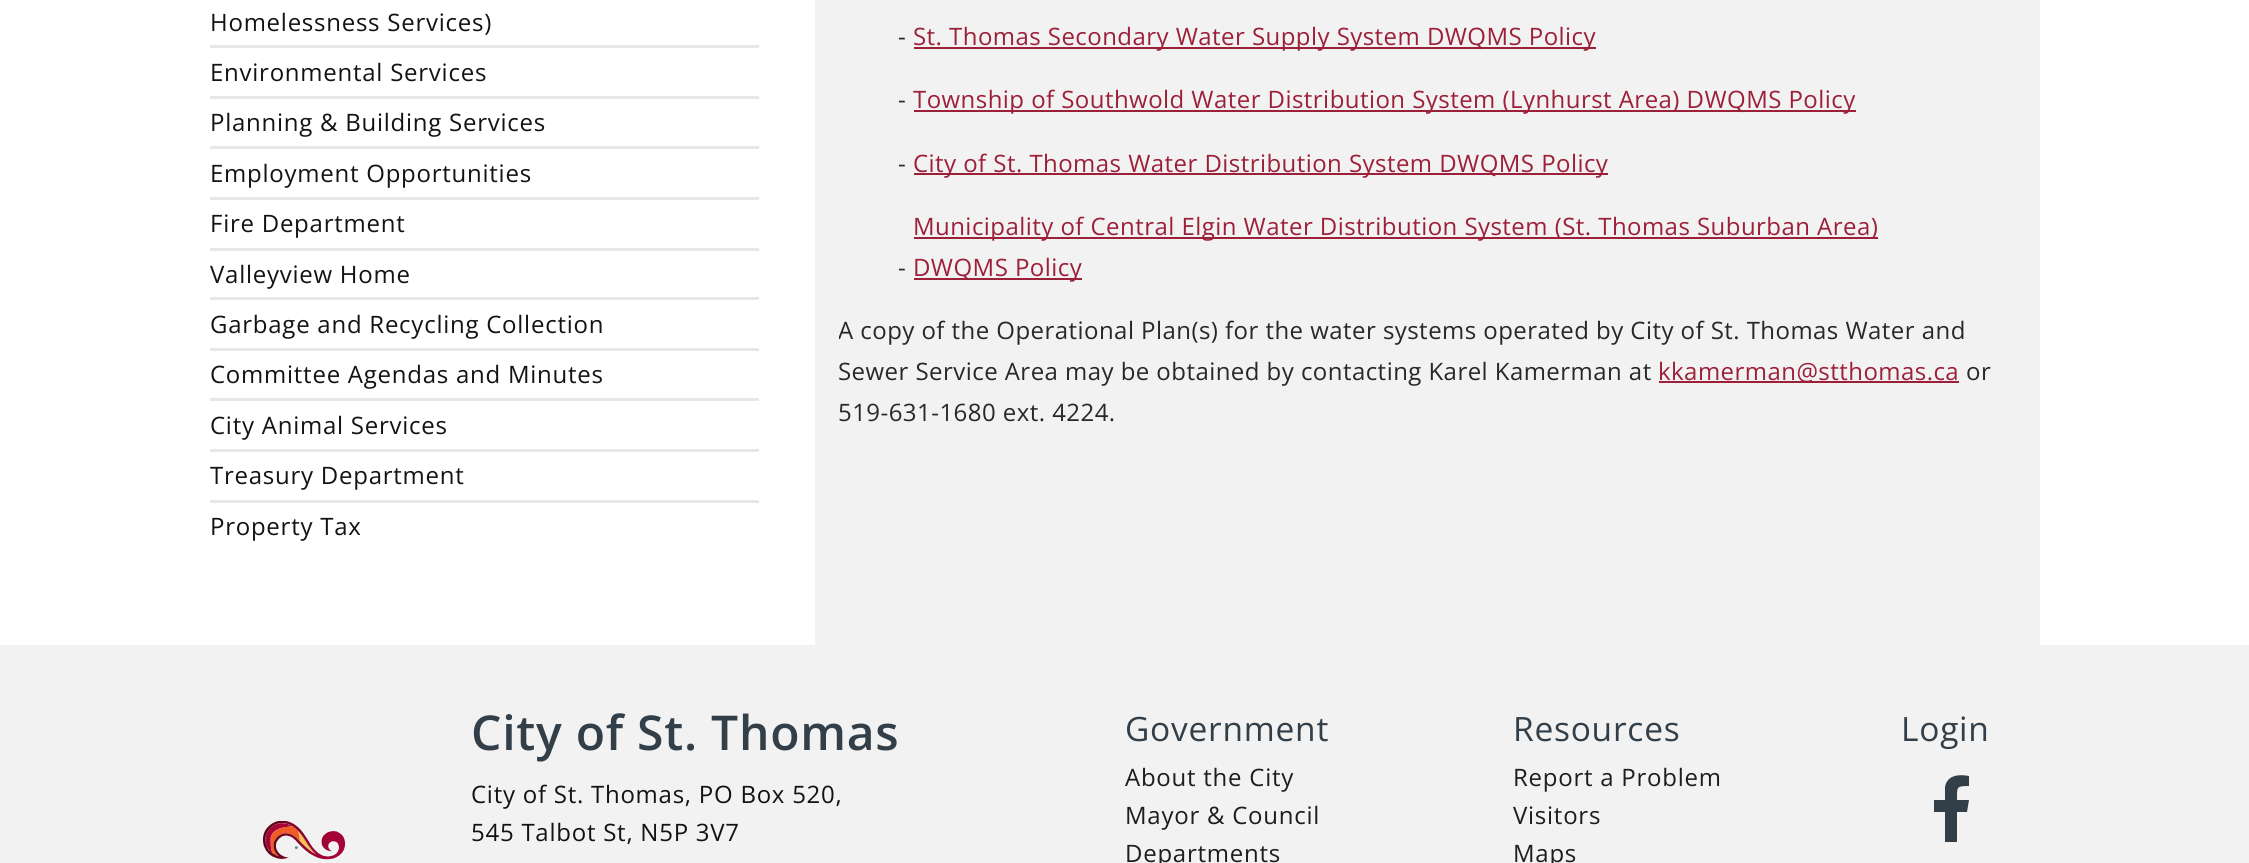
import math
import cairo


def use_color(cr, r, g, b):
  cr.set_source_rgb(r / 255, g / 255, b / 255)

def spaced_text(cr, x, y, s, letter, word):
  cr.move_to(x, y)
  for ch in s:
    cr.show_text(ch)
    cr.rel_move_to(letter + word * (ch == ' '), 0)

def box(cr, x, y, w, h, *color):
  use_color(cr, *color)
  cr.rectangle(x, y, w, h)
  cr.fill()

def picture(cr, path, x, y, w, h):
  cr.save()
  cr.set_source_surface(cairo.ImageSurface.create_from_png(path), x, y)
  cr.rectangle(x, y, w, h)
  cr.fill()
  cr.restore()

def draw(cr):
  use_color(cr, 255, 255, 255)
  cr.paint()
  box(cr, 210, 45, 549, 3, 231, 231, 232)
  box(cr, 210, 96, 549, 3, 231, 231, 232)
  box(cr, 210, 146, 549, 3, 231, 231, 232)
  box(cr, 210, 197, 549, 3, 231, 231, 232)
  box(cr, 210, 248, 549, 3, 231, 231, 232)
  box(cr, 210, 297, 549, 3, 231, 231, 232)
  box(cr, 210, 348, 549, 3, 231, 231, 232)
  box(cr, 210, 398, 549, 3, 231, 231, 232)
  box(cr, 210, 449, 549, 3, 231, 231, 232)
  box(cr, 210, 500, 549, 3, 231, 231, 232)
  box(cr, 815, 0, 1225, 645, 242, 242, 243)
  box(cr, 914, 47, 682, 2, 156, 32, 55)
  box(cr, 914, 110, 942, 2, 156, 32, 55)
  box(cr, 914, 173, 694, 2, 156, 32, 55)
  box(cr, 914, 237, 964, 2, 156, 32, 55)
  box(cr, 914, 278, 168, 2, 156, 32, 55)
  box(cr, 1659, 381, 300, 2, 156, 32, 55)
  box(cr, 0, 645, 2249, 218, 242, 242, 243)
  picture(cr, "img_01.png", 263, 820, 83, 40)
  use_color(cr, 50, 63, 73)
  cr.new_path()
  cr.move_to(1969, 776)
  cr.line_to(1969, 786)
  cr.curve_to(1956, 786, 1957, 787, 1957, 800)
  cr.line_to(1969, 800)
  cr.line_to(1967, 812)
  cr.line_to(1957, 812)
  cr.line_to(1957, 842)
  cr.line_to(1945, 842)
  cr.line_to(1945, 812)
  cr.line_to(1934, 812)
  cr.line_to(1934, 800)
  cr.line_to(1945, 800)
  cr.line_to(1945, 787)
  cr.curve_to(1947, 775, 1959, 774, 1969, 776)
  cr.close_path()
  cr.fill()
  cr.select_font_face("Open Sans")
  cr.set_font_size(24)
  use_color(cr, 19, 19, 20)
  spaced_text(cr, 210, 31, "Homelessness Services)", 0.75, 0)
  spaced_text(cr, 210, 81, "Environmental Services", 0.75, 0)
  spaced_text(cr, 210, 131, "Planning & Building Services", 0.75, 0)
  spaced_text(cr, 210, 182, "Employment Opportunities", 0.75, 0)
  spaced_text(cr, 210, 232, "Fire Department", 0.75, 0)
  spaced_text(cr, 210, 283, "Valleyview Home", 0.75, 0)
  spaced_text(cr, 210, 333, "Garbage and Recycling Collection", 0.75, 0)
  spaced_text(cr, 210, 383, "Committee Agendas and Minutes", 0.75, 0)
  spaced_text(cr, 210, 434, "City Animal Services", 0.75, 0)
  spaced_text(cr, 210, 484, "Treasury Department", 0.75, 0)
  spaced_text(cr, 210, 535, "Property Tax", 0.75, 0)
  use_color(cr, 40, 40, 40)
  spaced_text(cr, 898, 45, "-", 0.45, 0)
  use_color(cr, 156, 32, 55)
  spaced_text(cr, 913, 45, "St. Thomas Secondary Water Supply System DWQMS Policy", 0.45, 0)
  use_color(cr, 40, 40, 40)
  spaced_text(cr, 898, 108, "-", 0.45, 0)
  use_color(cr, 156, 32, 55)
  spaced_text(cr, 913, 108, "Township of Southwold Water Distribution System (Lynhurst Area) DWQMS Policy", 0.45, 0)
  use_color(cr, 40, 40, 40)
  spaced_text(cr, 898, 172, "-", 0.45, 0)
  use_color(cr, 156, 32, 55)
  spaced_text(cr, 913, 172, "City of St. Thomas Water Distribution System DWQMS Policy", 0.45, 0)
  use_color(cr, 40, 40, 40)
  spaced_text(cr, 898, 276, "-", 0.45, 0)
  use_color(cr, 156, 32, 55)
  spaced_text(cr, 913, 235, "Municipality of Central Elgin Water Distribution System (St. Thomas Suburban Area)", 0.45, 0)
  spaced_text(cr, 913, 276, "DWQMS Policy", 0.45, 0)
  cr.save()
  cr.rectangle(839, 0, 1177, 456)
  cr.clip()
  use_color(cr, 40, 40, 40)
  spaced_text(cr, 838, 339, "A copy of the Operational Plan(s) for the water systems operated by City of St. Thomas Water and", 0.45, 0)
  cr.restore()
  use_color(cr, 40, 40, 40)
  spaced_text(cr, 838, 380, "Sewer Service Area may be obtained by contacting Karel Kamerman at", 0.45, 0)
  use_color(cr, 156, 32, 55)
  spaced_text(cr, 1658, 380, "kkamerman@stthomas.ca", 0.45, 0)
  use_color(cr, 40, 40, 40)
  spaced_text(cr, 1966, 380, "or", 0.45, 0)
  spaced_text(cr, 838, 421, "519-631-1680 ext. 4224.", 0.45, 0)
  cr.select_font_face("Open Sans SemiBold")
  cr.set_font_size(48)
  use_color(cr, 50, 63, 73)
  spaced_text(cr, 471, 750, "City of St. Thomas", 0.75, 0)
  cr.select_font_face("Open Sans")
  cr.set_font_size(24)
  use_color(cr, 19, 19, 20)
  spaced_text(cr, 471, 803, "City of St. Thomas, PO Box 520,", 0.75, 0)
  spaced_text(cr, 471, 841, "545 Talbot St, N5P 3V7", 0.75, 0)
  cr.set_font_size(33.5)
  use_color(cr, 50, 63, 73)
  spaced_text(cr, 1125, 741, "Government", 0.75, 0)
  cr.set_font_size(24)
  use_color(cr, 29, 29, 29)
  spaced_text(cr, 1125, 786, "About the City", 0.75, 0)
  spaced_text(cr, 1125, 824, "Mayor & Council", 0.75, 0)
  spaced_text(cr, 1125, 862, "Departments", 0.75, 0)
  cr.set_font_size(33.5)
  use_color(cr, 50, 63, 73)
  spaced_text(cr, 1513, 741, "Resources", 0.75, 0)
  cr.set_font_size(24)
  use_color(cr, 29, 29, 29)
  spaced_text(cr, 1513, 786, "Report a Problem", 0.75, 0)
  spaced_text(cr, 1513, 824, "Visitors", 0.75, 0)
  spaced_text(cr, 1513, 862, "Maps", 0.75, 0)
  cr.set_font_size(33.5)
  use_color(cr, 50, 63, 73)
  spaced_text(cr, 1901, 741, "Login", 0.75, 0)


surface = cairo.ImageSurface(cairo.FORMAT_RGB24, 2249, 863)
cr = cairo.Context(surface)
options = cairo.FontOptions()
options.set_hint_metrics(cairo.HINT_METRICS_OFF)
options.set_hint_style(cairo.HINT_STYLE_NONE)
cr.set_font_options(options)
cr.set_miter_limit(4)
draw(cr)
surface.write_to_png("out.png")
